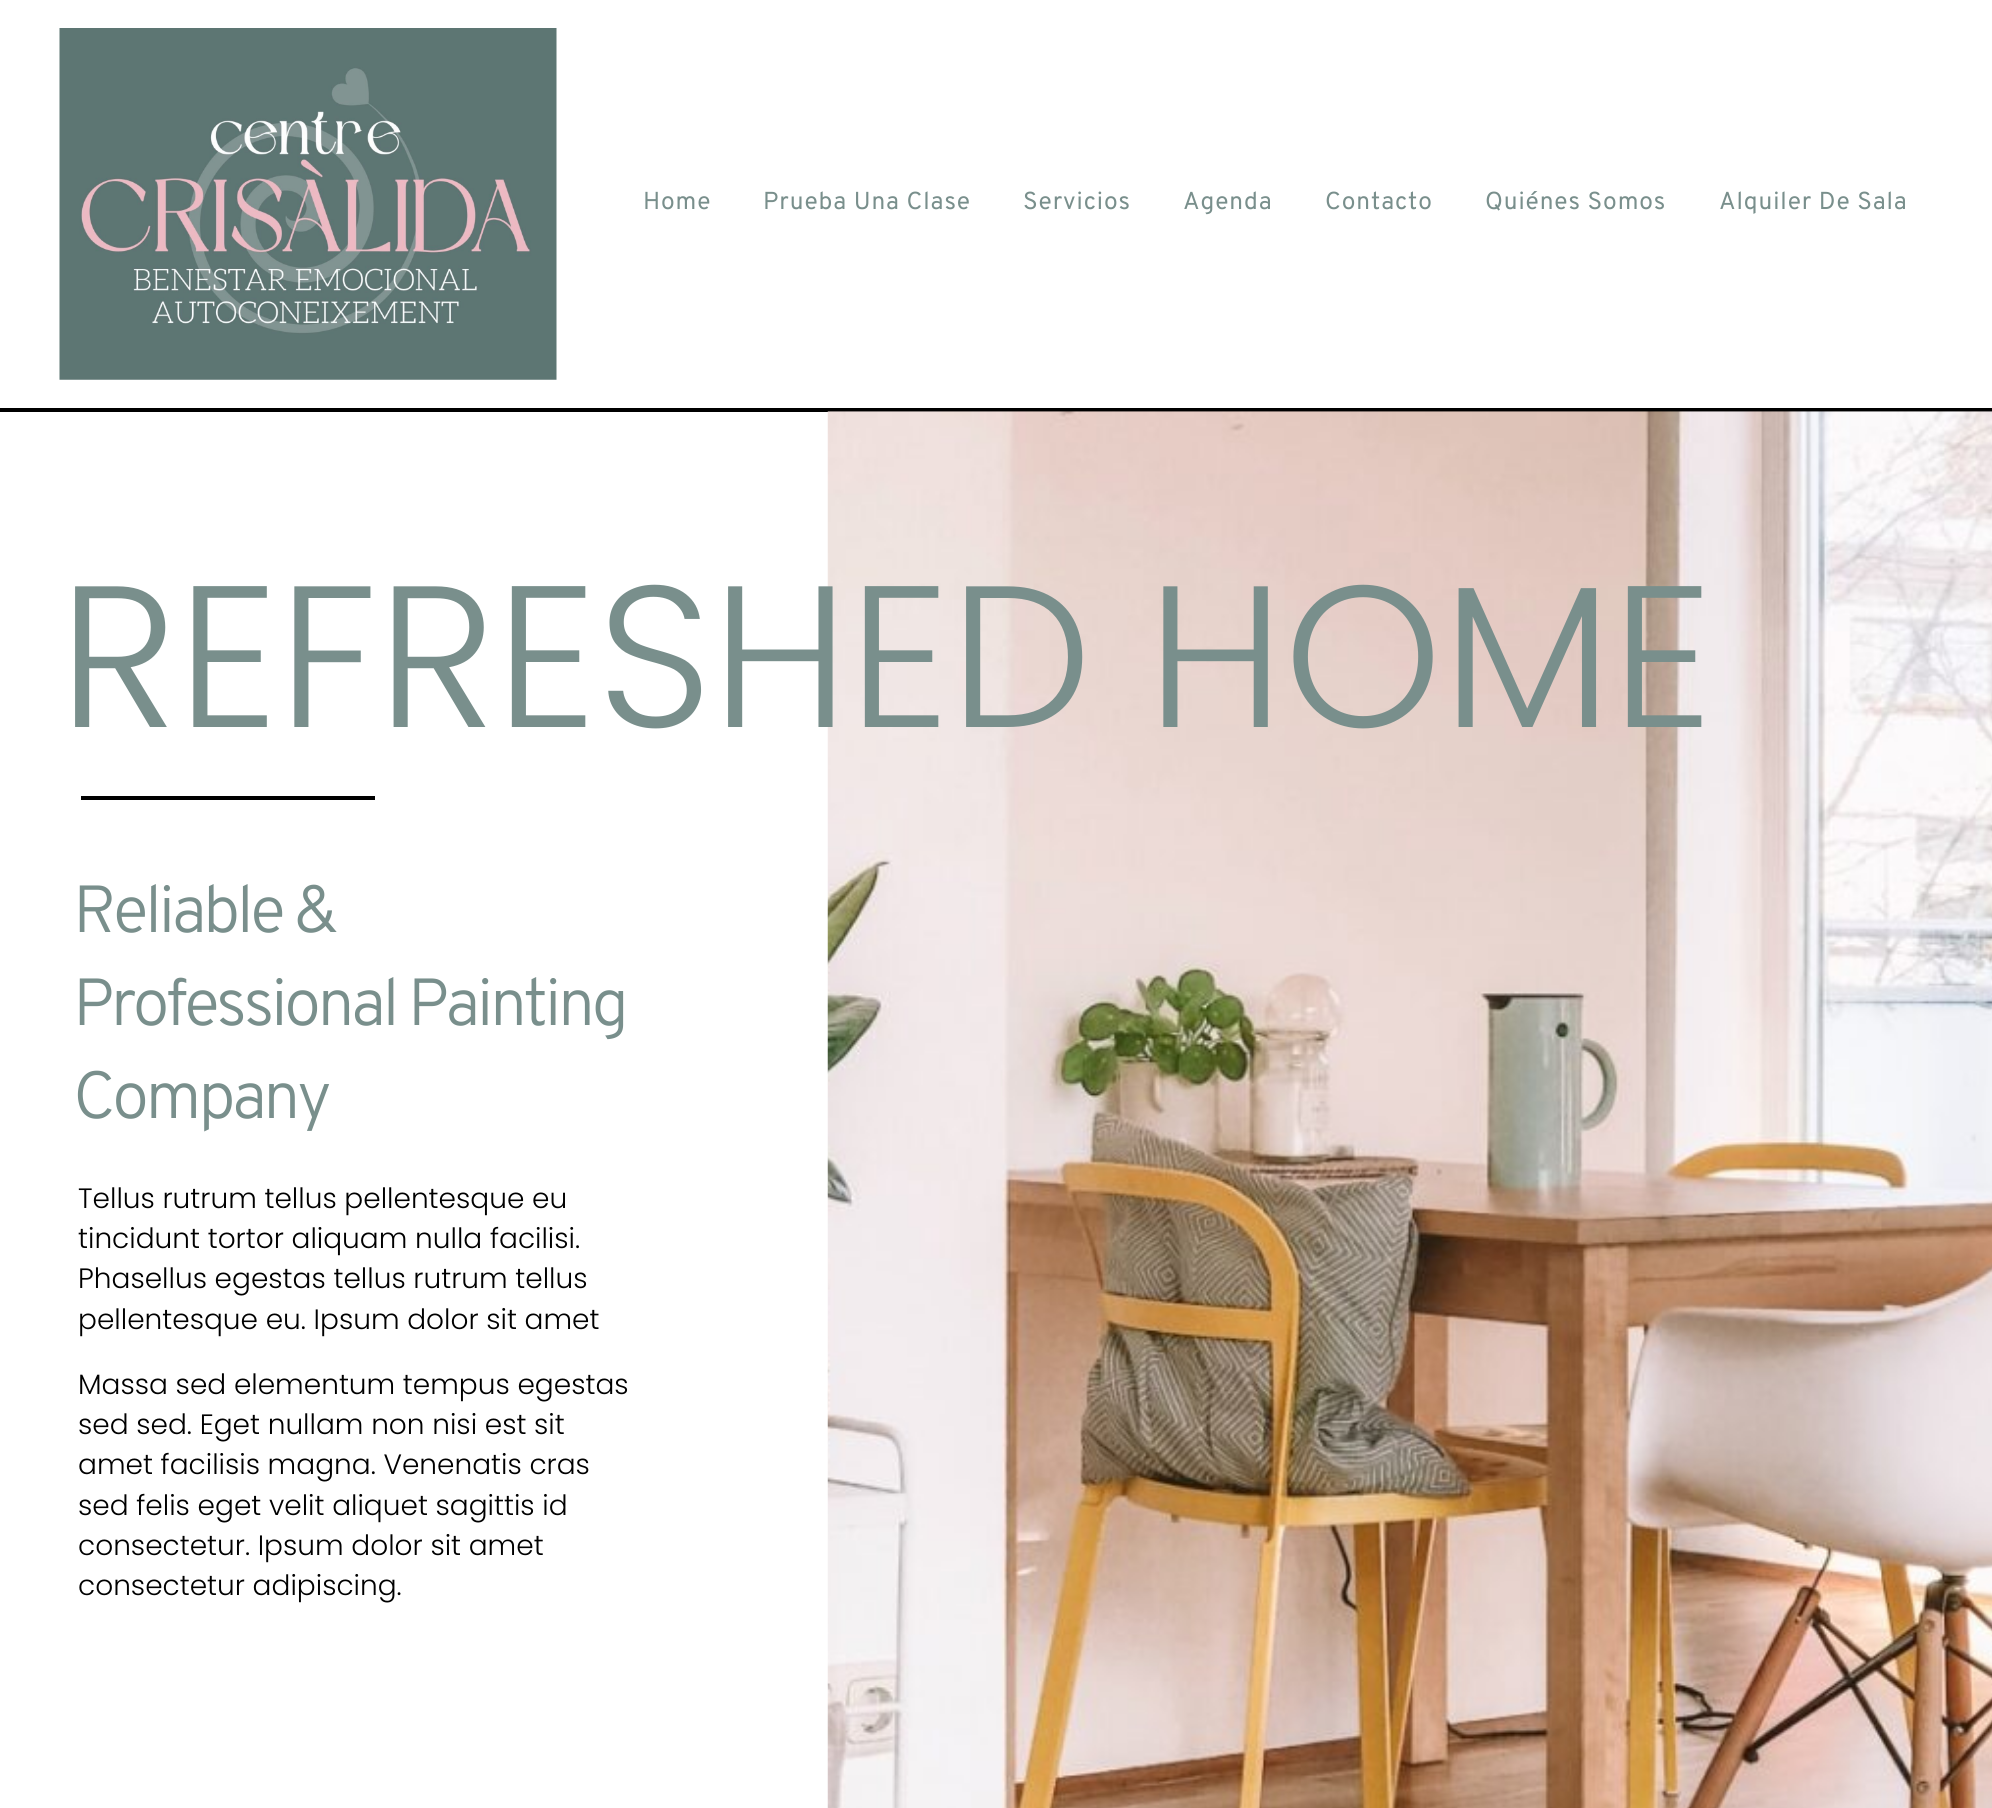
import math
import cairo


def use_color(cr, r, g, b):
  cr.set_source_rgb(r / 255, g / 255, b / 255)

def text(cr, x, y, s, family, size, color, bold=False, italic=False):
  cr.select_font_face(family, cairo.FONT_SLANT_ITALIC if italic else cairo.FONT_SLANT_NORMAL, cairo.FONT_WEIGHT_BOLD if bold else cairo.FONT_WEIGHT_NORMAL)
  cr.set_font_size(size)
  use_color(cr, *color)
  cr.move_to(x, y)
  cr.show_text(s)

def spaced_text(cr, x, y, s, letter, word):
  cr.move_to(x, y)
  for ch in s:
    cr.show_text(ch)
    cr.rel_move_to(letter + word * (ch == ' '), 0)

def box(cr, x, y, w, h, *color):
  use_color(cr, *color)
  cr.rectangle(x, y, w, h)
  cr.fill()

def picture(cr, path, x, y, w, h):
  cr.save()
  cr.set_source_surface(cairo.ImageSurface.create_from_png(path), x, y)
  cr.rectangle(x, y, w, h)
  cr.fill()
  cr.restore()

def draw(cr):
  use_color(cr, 255, 255, 255)
  cr.paint()
  picture(cr, "img_01.png", 59, 28, 498, 352)
  box(cr, 0, 408, 1992, 4, 0, 0, 0)
  picture(cr, "img_02.png", 827, 411, 1165, 1397)
  box(cr, 81, 796, 294, 4, 0, 0, 0)
  cr.select_font_face("Overpass")
  cr.set_font_size(24.5)
  use_color(cr, 121, 143, 140)
  spaced_text(cr, 643, 209, "Home", 0.9, 0)
  spaced_text(cr, 763, 209, "Prueba Una Clase", 0.9, 0)
  spaced_text(cr, 1023, 209, "Servicios", 0.9, 0)
  spaced_text(cr, 1183, 209, "Agenda", 0.9, 0)
  spaced_text(cr, 1325, 209, "Contacto", 0.9, 0)
  spaced_text(cr, 1485, 209, "Quiénes Somos", 0.9, 0)
  spaced_text(cr, 1719, 209, "Alquiler De Sala", 0.9, 0)
  text(cr, 59, 727, "REFRESHED HOME", "Poppins Light", 201.25, (121, 143, 140))
  cr.select_font_face("Overpass Light")
  cr.set_font_size(66.5)
  spaced_text(cr, 73, 932, "Reliable &", -3.5, 0)
  spaced_text(cr, 73, 1025, "Professional Painting", -3.5, 0)
  spaced_text(cr, 73, 1118, "Company", -3.5, 0)
  text(cr, 78, 1208, "Tellus rutrum tellus pellentesque eu", "Poppins Light", 28, (0, 0, 0))
  text(cr, 78, 1248, "tincidunt tortor aliquam nulla facilisi.", "Poppins Light", 28, (0, 0, 0))
  text(cr, 78, 1288, "Phasellus egestas tellus rutrum tellus", "Poppins Light", 28, (0, 0, 0))
  text(cr, 78, 1329, "pellentesque eu. Ipsum dolor sit amet", "Poppins Light", 28, (0, 0, 0))
  text(cr, 78, 1394, "Massa sed elementum tempus egestas", "Poppins Light", 28, (0, 0, 0))
  text(cr, 78, 1434, "sed sed. Eget nullam non nisi est sit", "Poppins Light", 28, (0, 0, 0))
  text(cr, 78, 1474, "amet facilisis magna. Venenatis cras", "Poppins Light", 28, (0, 0, 0))
  text(cr, 78, 1515, "sed felis eget velit aliquet sagittis id", "Poppins Light", 28, (0, 0, 0))
  text(cr, 78, 1555, "consectetur. Ipsum dolor sit amet", "Poppins Light", 28, (0, 0, 0))
  text(cr, 78, 1595, "consectetur adipiscing.", "Poppins Light", 28, (0, 0, 0))


surface = cairo.ImageSurface(cairo.FORMAT_RGB24, 1992, 1808)
cr = cairo.Context(surface)
options = cairo.FontOptions()
options.set_hint_metrics(cairo.HINT_METRICS_OFF)
options.set_hint_style(cairo.HINT_STYLE_NONE)
cr.set_font_options(options)
cr.set_miter_limit(4)
draw(cr)
surface.write_to_png("out.png")
